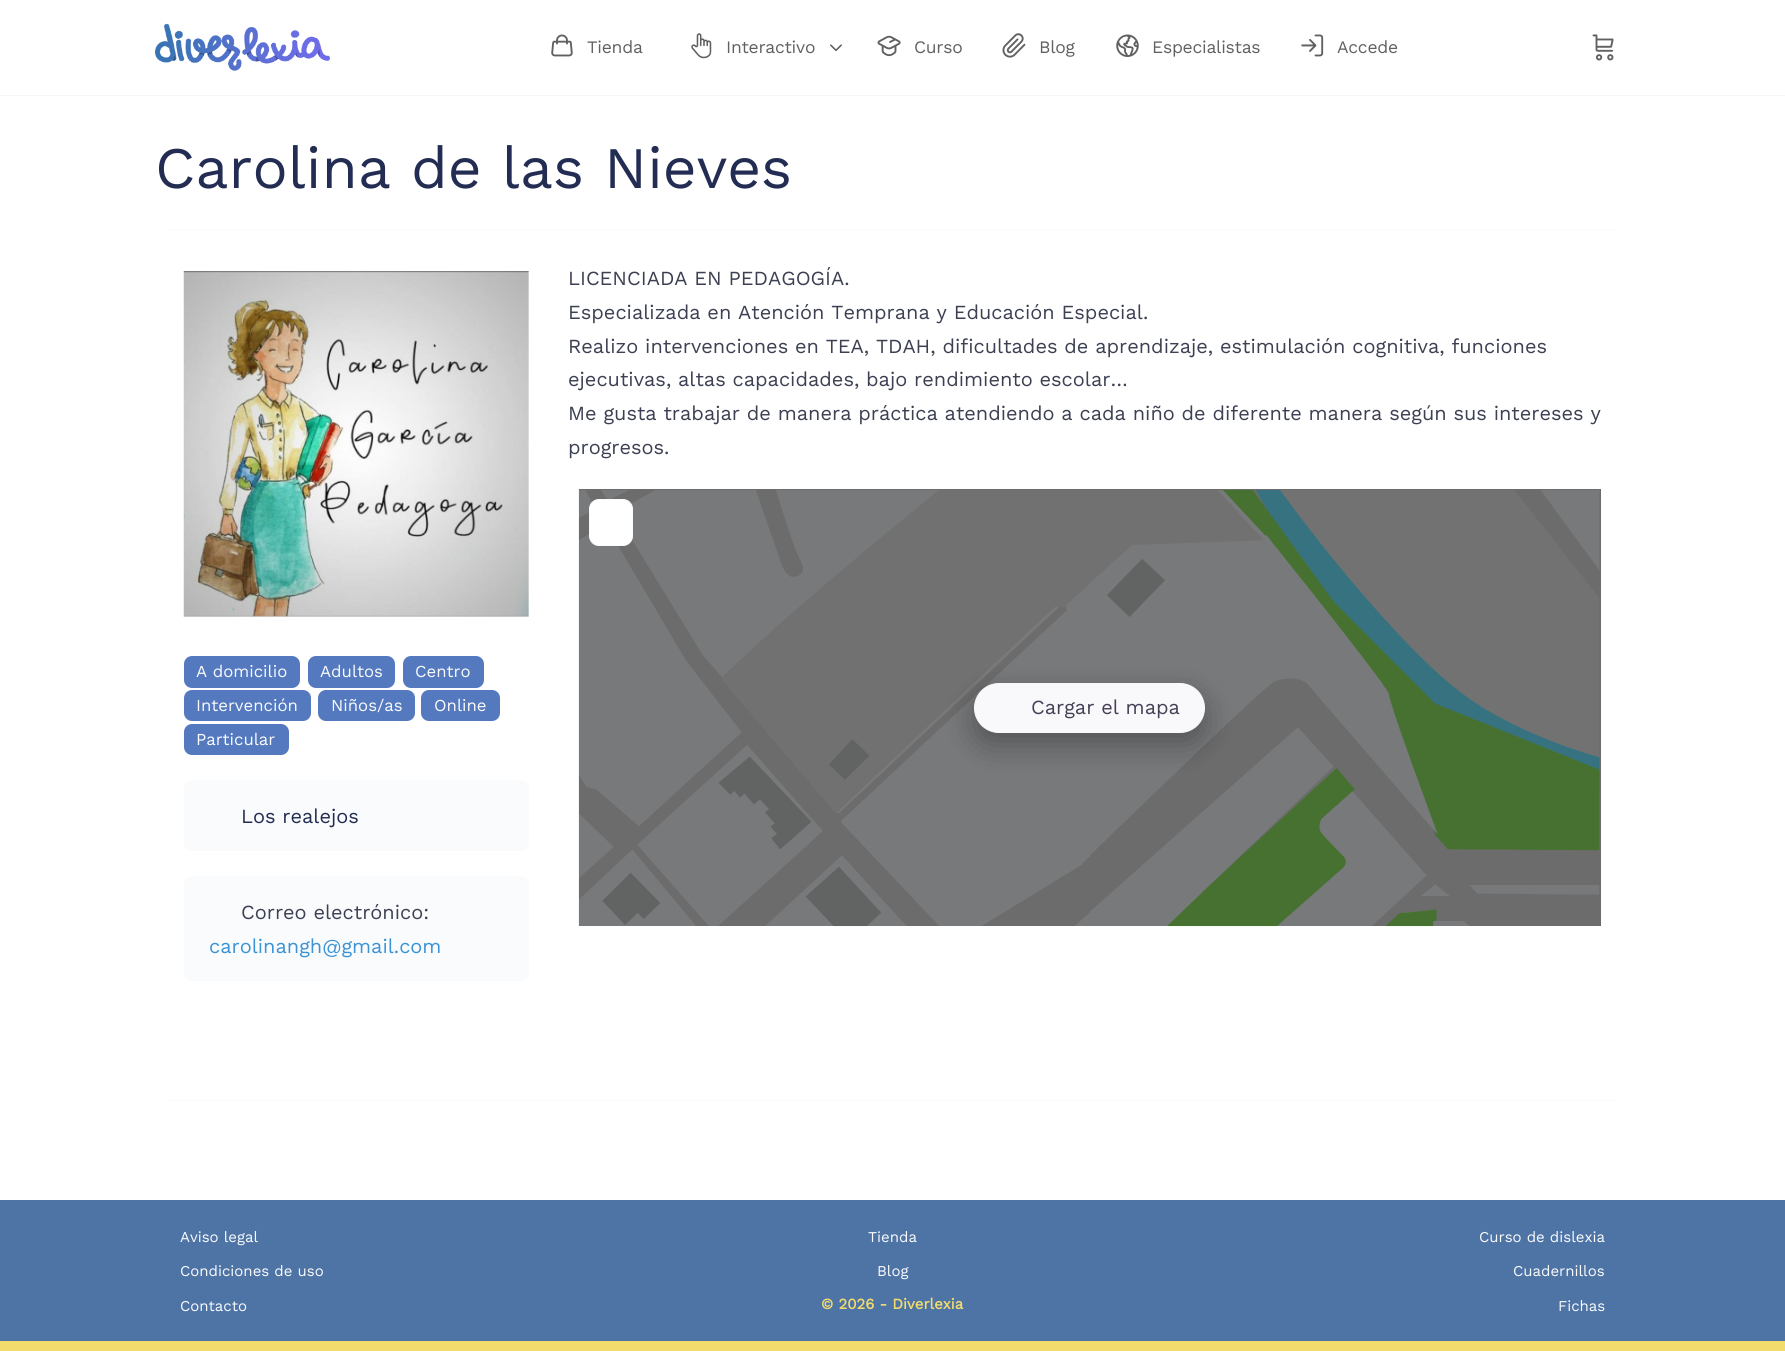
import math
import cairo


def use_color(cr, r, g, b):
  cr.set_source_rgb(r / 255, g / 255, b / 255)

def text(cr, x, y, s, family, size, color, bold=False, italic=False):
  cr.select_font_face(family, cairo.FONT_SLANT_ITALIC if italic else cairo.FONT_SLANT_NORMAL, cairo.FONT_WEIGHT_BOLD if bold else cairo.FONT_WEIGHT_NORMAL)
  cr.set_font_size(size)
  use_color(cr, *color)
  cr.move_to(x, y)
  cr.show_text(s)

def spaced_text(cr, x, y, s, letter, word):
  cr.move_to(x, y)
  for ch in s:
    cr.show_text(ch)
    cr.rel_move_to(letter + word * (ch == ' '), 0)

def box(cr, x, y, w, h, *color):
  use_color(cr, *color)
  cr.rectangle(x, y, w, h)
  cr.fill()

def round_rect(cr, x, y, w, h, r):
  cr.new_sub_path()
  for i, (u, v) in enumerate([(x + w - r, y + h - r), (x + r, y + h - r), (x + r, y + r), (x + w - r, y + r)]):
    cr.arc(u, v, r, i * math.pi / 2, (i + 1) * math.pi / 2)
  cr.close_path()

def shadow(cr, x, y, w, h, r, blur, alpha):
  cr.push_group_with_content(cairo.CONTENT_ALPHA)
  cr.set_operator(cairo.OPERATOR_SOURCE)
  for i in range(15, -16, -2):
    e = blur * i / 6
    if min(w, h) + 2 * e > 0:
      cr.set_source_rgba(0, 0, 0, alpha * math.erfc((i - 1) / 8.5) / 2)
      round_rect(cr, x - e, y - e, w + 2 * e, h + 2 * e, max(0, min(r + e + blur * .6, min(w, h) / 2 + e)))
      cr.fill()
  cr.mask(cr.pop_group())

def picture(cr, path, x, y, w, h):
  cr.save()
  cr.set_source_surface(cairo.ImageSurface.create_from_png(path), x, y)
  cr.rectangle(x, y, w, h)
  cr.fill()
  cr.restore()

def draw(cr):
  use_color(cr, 255, 255, 255)
  cr.paint()
  box(cr, 0, 95, 1785, 1, 246, 247, 248)
  picture(cr, "img_01.png", 155, 23, 175, 48)
  picture(cr, "img_02.png", 551, 34, 22, 23)
  picture(cr, "img_03.png", 691, 33, 21, 26)
  picture(cr, "img_04.png", 830, 44, 12, 8)
  picture(cr, "img_05.png", 877, 35, 24, 22)
  picture(cr, "img_06.png", 1002, 33, 24, 25)
  picture(cr, "img_07.png", 1116, 34, 23, 23)
  picture(cr, "img_08.png", 1301, 34, 23, 23)
  picture(cr, "img_09.png", 1592, 34, 22, 27)
  box(cr, 168, 229, 1450, 1, 250, 251, 253)
  box(cr, 168, 1100, 1450, 1, 250, 251, 253)
  picture(cr, "img_10.png", 578, 489, 1023, 438)
  use_color(cr, 255, 255, 255)
  round_rect(cr, 589.5, 499.5, 43, 46, 9.5)
  cr.fill_preserve()
  use_color(cr, 250, 251, 253)
  cr.set_line_width(1)
  cr.stroke()
  use_color(cr, 0, 0, 0)
  shadow(cr, 974, 695, 231, 50, 25, 15.5, 0.3)
  use_color(cr, 249, 248, 250)
  round_rect(cr, 974.5, 683.5, 230, 49, 24.5)
  cr.fill_preserve()
  cr.stroke()
  picture(cr, "img_11.png", 183, 271, 346, 346)
  use_color(cr, 84, 121, 191)
  round_rect(cr, 184, 656, 116, 32, 8)
  cr.fill()
  round_rect(cr, 308, 656, 87, 32, 8)
  cr.fill()
  round_rect(cr, 403, 656, 81, 32, 8)
  cr.fill()
  round_rect(cr, 184, 690, 127, 31, 8)
  cr.fill()
  round_rect(cr, 318, 690, 97, 31, 8)
  cr.fill()
  round_rect(cr, 421, 690, 79, 31, 8)
  cr.fill()
  round_rect(cr, 184, 724, 105, 31, 8)
  cr.fill()
  use_color(cr, 250, 251, 253)
  round_rect(cr, 184, 780, 345, 71, 8)
  cr.fill()
  round_rect(cr, 184, 876, 345, 105, 8)
  cr.fill()
  box(cr, 0, 1200, 1785, 141, 78, 116, 166)
  box(cr, 0, 1341, 1785, 10, 242, 220, 109)
  cr.select_font_face("Work Sans")
  cr.set_font_size(17.5)
  use_color(cr, 96, 96, 96)
  spaced_text(cr, 587, 53, "Tienda", -0.25, 0)
  spaced_text(cr, 726, 53, "Interactivo", -0.25, 0)
  spaced_text(cr, 914, 53, "Curso", -0.25, 0)
  spaced_text(cr, 1039, 53, "Blog", -0.25, 0)
  spaced_text(cr, 1152, 53, "Especialistas", -0.25, 0)
  spaced_text(cr, 1337, 53, "Accede", -0.25, 0)
  text(cr, 155, 188, "Carolina de las Nieves", "Work Sans", 58.75, (35, 44, 82))
  text(cr, 568, 285, "LICENCIADA EN PEDAGOGÍA.", "Work Sans", 20, (60, 64, 82))
  text(cr, 568, 319, "Especializada en Atención Temprana y Educación Especial.", "Work Sans", 20, (60, 64, 82))
  text(cr, 568, 353, "Realizo intervenciones en TEA, TDAH, dificultades de aprendizaje, estimulación cognitiva, funciones", "Work Sans", 20, (60, 64, 82))
  text(cr, 568, 386, "ejecutivas, altas capacidades, bajo rendimiento escolar…", "Work Sans", 20, (60, 64, 82))
  text(cr, 568, 420, "Me gusta trabajar de manera práctica atendiendo a cada niño de diferente manera según sus intereses y", "Work Sans", 20, (60, 64, 82))
  text(cr, 568, 454, "progresos.", "Work Sans", 20, (60, 64, 82))
  text(cr, 1031, 714, "Cargar el mapa", "Work Sans", 20, (69, 64, 86))
  text(cr, 196, 677, "A domicilio", "Work Sans", 16.75, (250, 251, 253))
  text(cr, 320, 677, "Adultos", "Work Sans", 16.75, (250, 251, 253))
  text(cr, 415, 677, "Centro", "Work Sans", 16.75, (250, 251, 253))
  text(cr, 196, 711, "Intervención", "Work Sans", 16.75, (250, 251, 253))
  text(cr, 331, 711, "Niños/as", "Work Sans", 16.75, (250, 251, 253))
  text(cr, 434, 711, "Online", "Work Sans", 16.75, (250, 251, 253))
  text(cr, 196, 745, "Particular", "Work Sans", 16.75, (250, 251, 253))
  text(cr, 241, 823, "Los realejos", "Work Sans", 20, (35, 44, 82))
  text(cr, 241, 919, "Correo electrónico:", "Work Sans", 20, (60, 64, 82))
  text(cr, 209, 953, "carolinangh@gmail.com", "Work Sans", 20, (57, 147, 213))
  text(cr, 180, 1242, "Aviso legal", "Work Sans", 15, (250, 251, 253))
  text(cr, 180, 1276, "Condiciones de uso", "Work Sans", 15, (250, 251, 253))
  text(cr, 180, 1311, "Contacto", "Work Sans", 15, (250, 251, 253))
  text(cr, 868, 1242, "Tienda", "Work Sans", 15, (250, 251, 253))
  text(cr, 877, 1276, "Blog", "Work Sans", 15, (250, 251, 253))
  text(cr, 821, 1309, "© 2026 - Diverlexia", "Work Sans", 15, (242, 220, 109), bold=True)
  text(cr, 1479, 1242, "Curso de dislexia", "Work Sans", 15, (250, 251, 253))
  text(cr, 1513, 1276, "Cuadernillos", "Work Sans", 15, (250, 251, 253))
  text(cr, 1558, 1311, "Fichas", "Work Sans", 15, (250, 251, 253))


surface = cairo.ImageSurface(cairo.FORMAT_RGB24, 1785, 1351)
cr = cairo.Context(surface)
options = cairo.FontOptions()
options.set_hint_metrics(cairo.HINT_METRICS_OFF)
options.set_hint_style(cairo.HINT_STYLE_NONE)
cr.set_font_options(options)
cr.set_miter_limit(4)
draw(cr)
surface.write_to_png("out.png")
